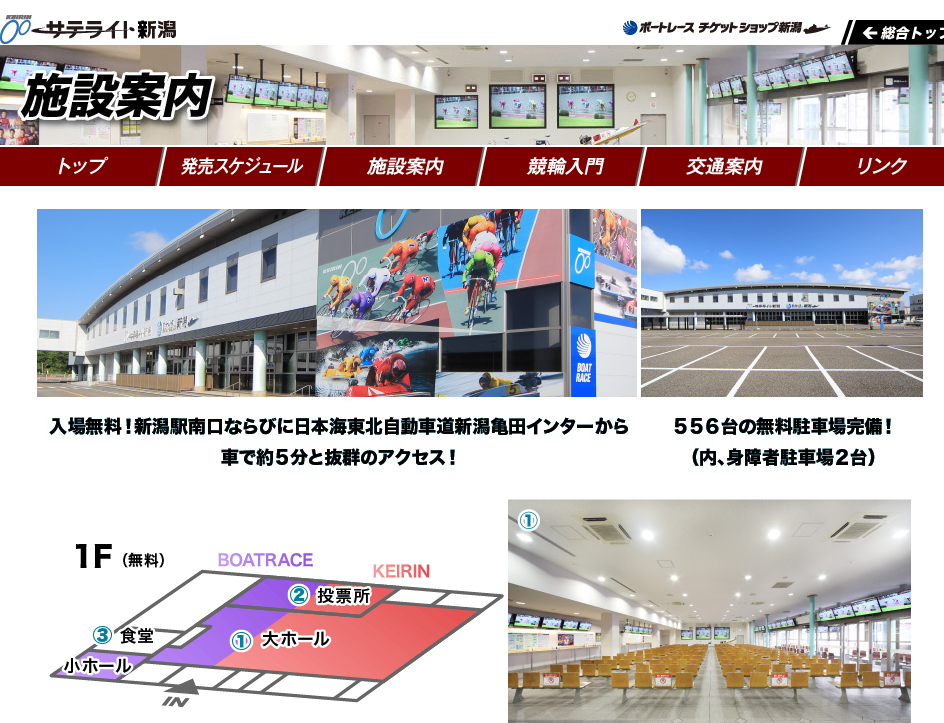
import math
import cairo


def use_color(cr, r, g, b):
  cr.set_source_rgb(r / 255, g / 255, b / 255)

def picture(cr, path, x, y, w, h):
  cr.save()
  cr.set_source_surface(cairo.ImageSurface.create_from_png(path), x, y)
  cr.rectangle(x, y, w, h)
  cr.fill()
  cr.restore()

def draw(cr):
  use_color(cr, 255, 255, 255)
  cr.paint()
  picture(cr, "img_01.png", 0, 15, 176, 29)
  picture(cr, "img_02.png", 623, 20, 208, 15)
  picture(cr, "img_03.png", 841, 20, 103, 25)
  picture(cr, "img_04.png", 0, 45, 944, 100)
  picture(cr, "img_05.png", 0, 147, 944, 39)
  picture(cr, "img_06.png", 37, 209, 600, 264)
  picture(cr, "img_07.png", 641, 209, 282, 264)
  picture(cr, "img_08.png", 49, 544, 455, 163)
  picture(cr, "img_09.png", 508, 499, 403, 224)


surface = cairo.ImageSurface(cairo.FORMAT_RGB24, 944, 723)
cr = cairo.Context(surface)
options = cairo.FontOptions()
options.set_hint_metrics(cairo.HINT_METRICS_OFF)
options.set_hint_style(cairo.HINT_STYLE_NONE)
cr.set_font_options(options)
cr.set_miter_limit(4)
draw(cr)
surface.write_to_png("out.png")
